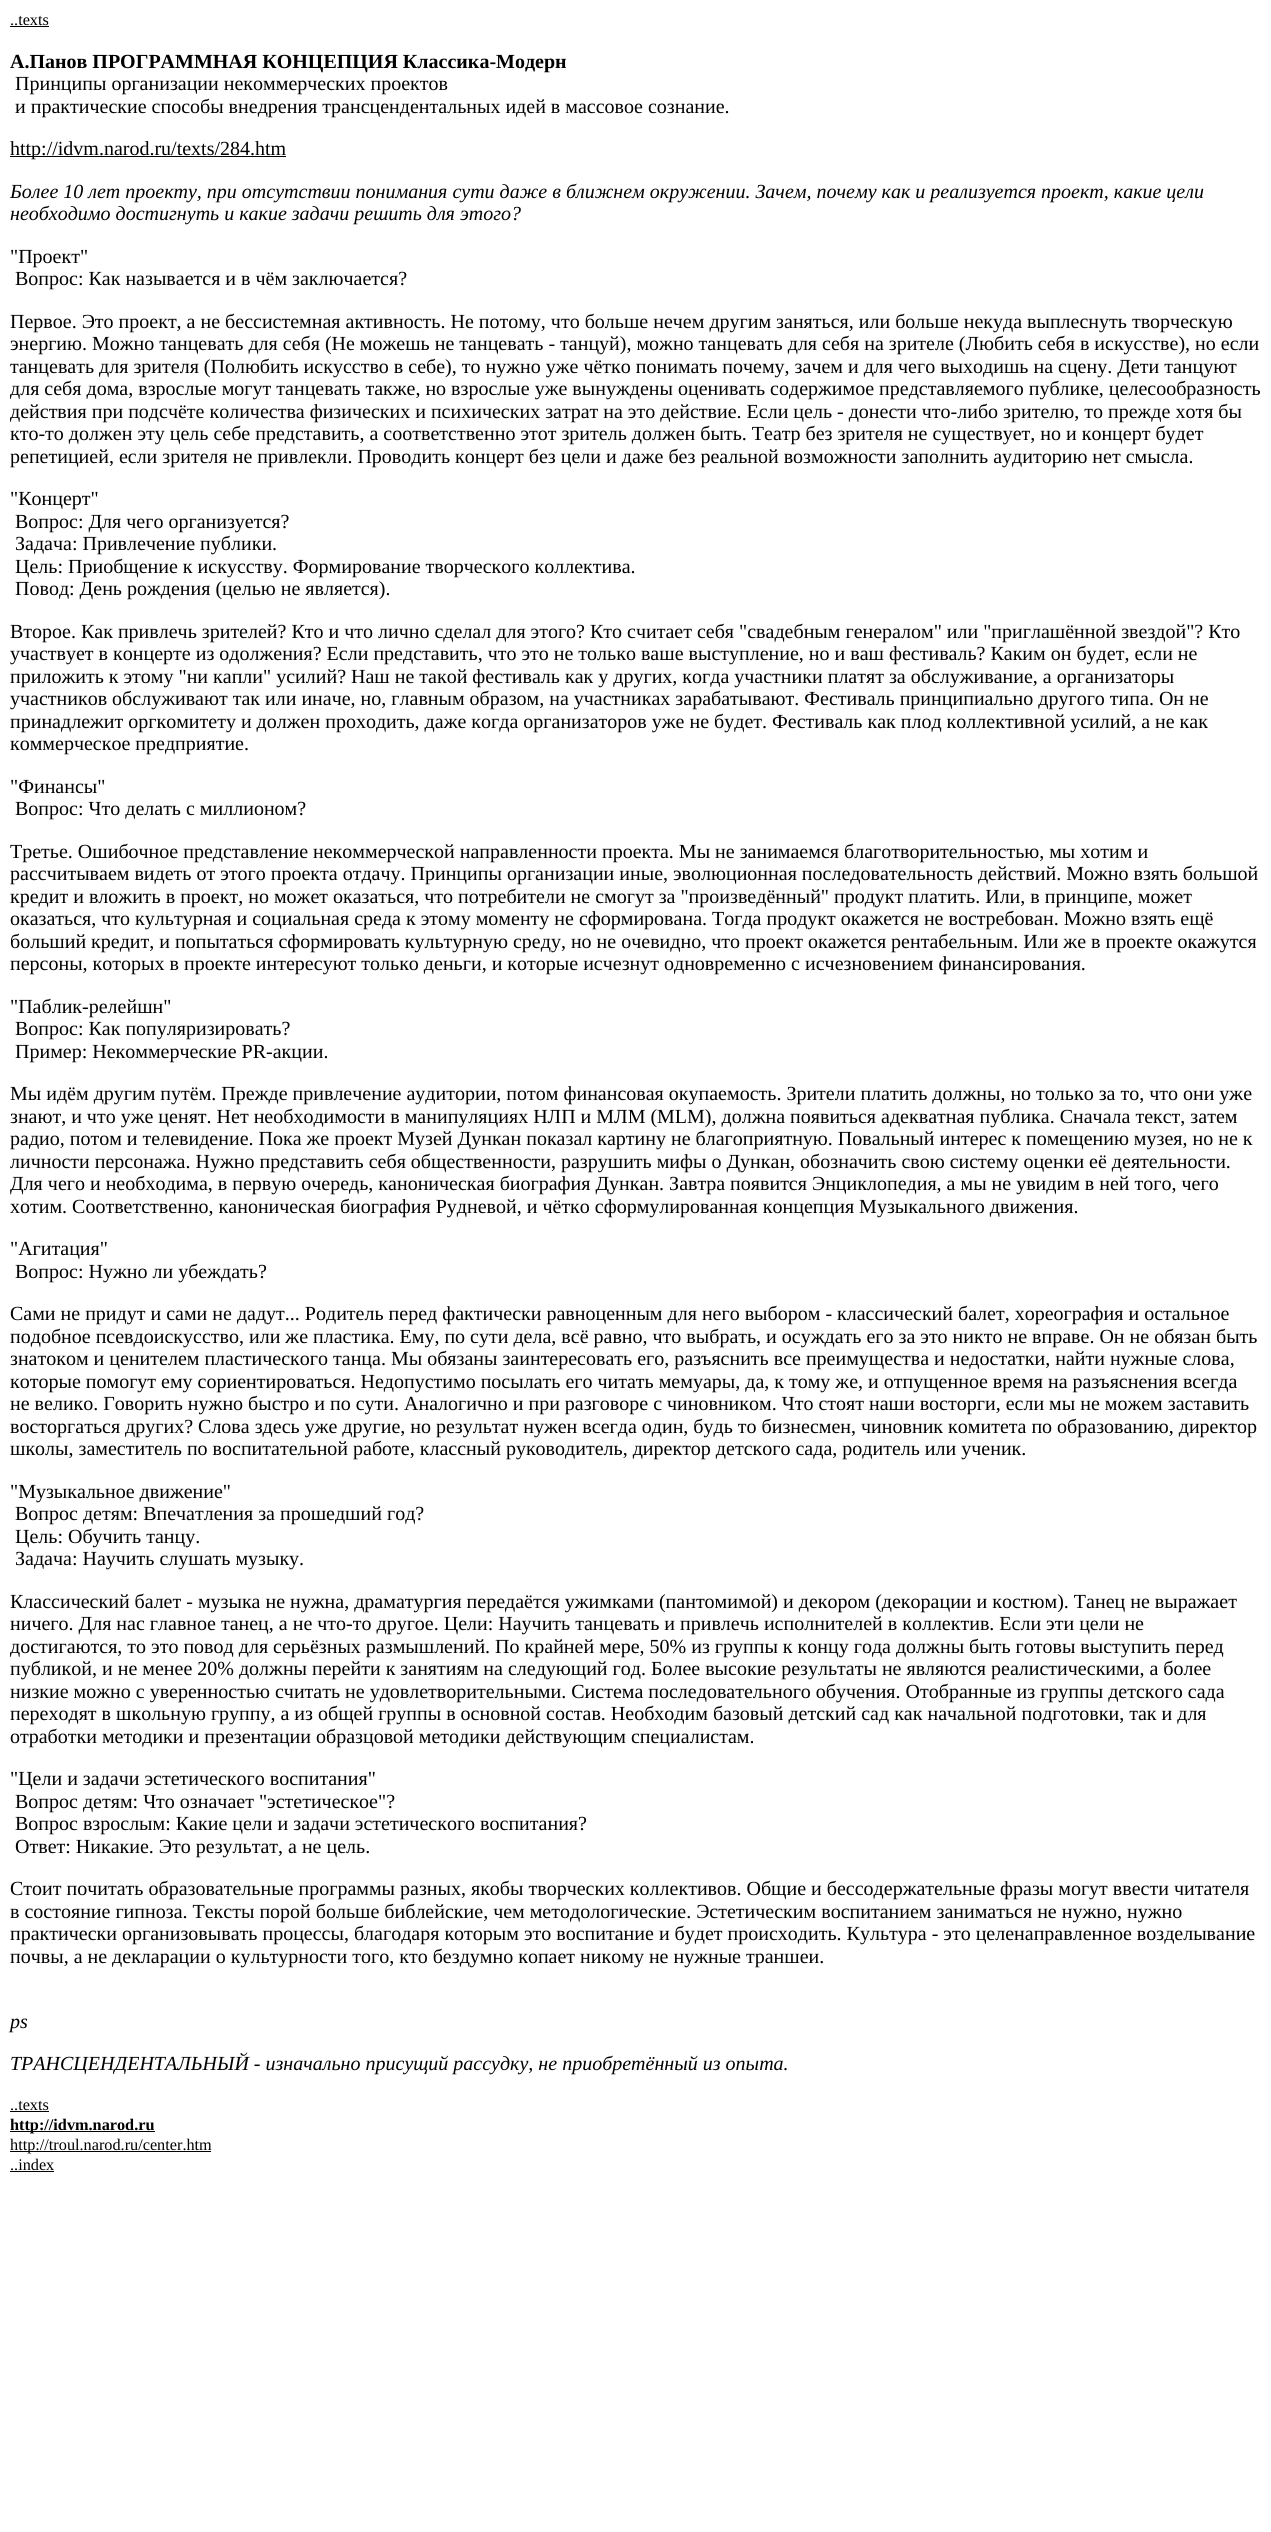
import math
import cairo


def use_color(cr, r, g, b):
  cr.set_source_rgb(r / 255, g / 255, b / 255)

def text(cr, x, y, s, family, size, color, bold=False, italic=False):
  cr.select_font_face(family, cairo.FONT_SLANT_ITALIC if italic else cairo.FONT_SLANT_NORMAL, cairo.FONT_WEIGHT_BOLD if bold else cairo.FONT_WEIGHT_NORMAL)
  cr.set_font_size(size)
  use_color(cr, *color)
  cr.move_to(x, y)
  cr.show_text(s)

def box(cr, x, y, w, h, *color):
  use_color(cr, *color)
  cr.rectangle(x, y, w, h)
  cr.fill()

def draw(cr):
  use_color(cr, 255, 255, 255)
  cr.paint()
  box(cr, 10, 26, 39, 1, 0, 0, 0)
  box(cr, 10, 156, 276, 1, 0, 0, 0)
  box(cr, 10, 2111, 39, 1, 0, 0, 0)
  box(cr, 10, 2131, 145, 1, 0, 0, 0)
  box(cr, 10, 2151, 201, 1, 0, 0, 0)
  box(cr, 10, 2171, 44, 1, 0, 0, 0)
  text(cr, 10, 25, "..texts", "Liberation Serif", 16.25, (0, 0, 0))
  text(cr, 10, 68, "А.Панов ПРОГРАММНАЯ КОНЦЕПЦИЯ Классика-Модерн", "Liberation Serif", 20, (0, 0, 0), bold=True)
  text(cr, 15, 90, "Принципы организации некоммерческих проектов", "Liberation Serif", 20, (0, 0, 0))
  text(cr, 15, 113, "и практические способы внедрения трансцендентальных идей в массовое сознание.", "Liberation Serif", 20, (0, 0, 0))
  text(cr, 10, 155, "http://idvm.narod.ru/texts/284.htm", "Liberation Serif", 20, (0, 0, 0))
  text(cr, 10, 198, "Более 10 лет проекту, при отсутствии понимания сути даже в ближнем окружении. Зачем, почему как и реализуется проект, какие цели", "Liberation Serif", 20, (0, 0, 0), italic=True)
  text(cr, 10, 220, "необходимо достигнуть и какие задачи решить для этого?", "Liberation Serif", 20, (0, 0, 0), italic=True)
  text(cr, 10, 263, "\"Проект\"", "Liberation Serif", 20, (0, 0, 0))
  text(cr, 15, 285, "Вопрос: Как называется и в чём заключается?", "Liberation Serif", 20, (0, 0, 0))
  text(cr, 10, 328, "Первое. Это проект, а не бессистемная активность. Не потому, что больше нечем другим заняться, или больше некуда выплеснуть творческую", "Liberation Serif", 20, (0, 0, 0))
  text(cr, 10, 350, "энергию. Можно танцевать для себя (Не можешь не танцевать - танцуй), можно танцевать для себя на зрителе (Любить себя в искусстве), но если", "Liberation Serif", 20, (0, 0, 0))
  text(cr, 10, 373, "танцевать для зрителя (Полюбить искусство в себе), то нужно уже чётко понимать почему, зачем и для чего выходишь на сцену. Дети танцуют", "Liberation Serif", 20, (0, 0, 0))
  text(cr, 10, 395, "для себя дома, взрослые могут танцевать также, но взрослые уже вынуждены оценивать содержимое представляемого публике, целесообразность", "Liberation Serif", 20, (0, 0, 0))
  text(cr, 10, 418, "действия при подсчёте количества физических и психических затрат на это действие. Если цель - донести что-либо зрителю, то прежде хотя бы", "Liberation Serif", 20, (0, 0, 0))
  text(cr, 10, 440, "кто-то должен эту цель себе представить, а соответственно этот зритель должен быть. Театр без зрителя не существует, но и концерт будет", "Liberation Serif", 20, (0, 0, 0))
  text(cr, 10, 463, "репетицией, если зрителя не привлекли. Проводить концерт без цели и даже без реальной возможности заполнить аудиторию нет смысла.", "Liberation Serif", 20, (0, 0, 0))
  text(cr, 10, 505, "\"Концерт\"", "Liberation Serif", 20, (0, 0, 0))
  text(cr, 15, 528, "Вопрос: Для чего организуется?", "Liberation Serif", 20, (0, 0, 0))
  text(cr, 15, 550, "Задача: Привлечение публики.", "Liberation Serif", 20, (0, 0, 0))
  text(cr, 15, 573, "Цель: Приобщение к искусству. Формирование творческого коллектива.", "Liberation Serif", 20, (0, 0, 0))
  text(cr, 15, 595, "Повод: День рождения (целью не является).", "Liberation Serif", 20, (0, 0, 0))
  text(cr, 10, 638, "Второе. Как привлечь зрителей? Кто и что лично сделал для этого? Кто считает себя \"свадебным генералом\" или \"приглашённой звездой\"? Кто", "Liberation Serif", 20, (0, 0, 0))
  text(cr, 10, 660, "участвует в концерте из одолжения? Если представить, что это не только ваше выступление, но и ваш фестиваль? Каким он будет, если не", "Liberation Serif", 20, (0, 0, 0))
  text(cr, 10, 683, "приложить к этому \"ни капли\" усилий? Наш не такой фестиваль как у других, когда участники платят за обслуживание, а организаторы", "Liberation Serif", 20, (0, 0, 0))
  text(cr, 10, 705, "участников обслуживают так или иначе, но, главным образом, на участниках зарабатывают. Фестиваль принципиально другого типа. Он не", "Liberation Serif", 20, (0, 0, 0))
  text(cr, 10, 728, "принадлежит оргкомитету и должен проходить, даже когда организаторов уже не будет. Фестиваль как плод коллективной усилий, а не как", "Liberation Serif", 20, (0, 0, 0))
  text(cr, 10, 750, "коммерческое предприятие.", "Liberation Serif", 20, (0, 0, 0))
  text(cr, 10, 793, "\"Финансы\"", "Liberation Serif", 20, (0, 0, 0))
  text(cr, 15, 815, "Вопрос: Что делать с миллионом?", "Liberation Serif", 20, (0, 0, 0))
  text(cr, 10, 858, "Третье. Ошибочное представление некоммерческой направленности проекта. Мы не занимаемся благотворительностью, мы хотим и", "Liberation Serif", 20, (0, 0, 0))
  text(cr, 10, 880, "рассчитываем видеть от этого проекта отдачу. Принципы организации иные, эволюционная последовательность действий. Можно взять большой", "Liberation Serif", 20, (0, 0, 0))
  text(cr, 10, 903, "кредит и вложить в проект, но может оказаться, что потребители не смогут за \"произведённый\" продукт платить. Или, в принципе, может", "Liberation Serif", 20, (0, 0, 0))
  text(cr, 10, 925, "оказаться, что культурная и социальная среда к этому моменту не сформирована. Тогда продукт окажется не востребован. Можно взять ещё", "Liberation Serif", 20, (0, 0, 0))
  text(cr, 10, 948, "больший кредит, и попытаться сформировать культурную среду, но не очевидно, что проект окажется рентабельным. Или же в проекте окажутся", "Liberation Serif", 20, (0, 0, 0))
  text(cr, 10, 970, "персоны, которых в проекте интересуют только деньги, и которые исчезнут одновременно с исчезновением финансирования.", "Liberation Serif", 20, (0, 0, 0))
  text(cr, 10, 1013, "\"Паблик-релейшн\"", "Liberation Serif", 20, (0, 0, 0))
  text(cr, 15, 1035, "Вопрос: Как популяризировать?", "Liberation Serif", 20, (0, 0, 0))
  text(cr, 15, 1058, "Пример: Некоммерческие PR-акции.", "Liberation Serif", 20, (0, 0, 0))
  text(cr, 10, 1100, "Мы идём другим путём. Прежде привлечение аудитории, потом финансовая окупаемость. Зрители платить должны, но только за то, что они уже", "Liberation Serif", 20, (0, 0, 0))
  text(cr, 10, 1123, "знают, и что уже ценят. Нет необходимости в манипуляциях НЛП и МЛМ (MLM), должна появиться адекватная публика. Сначала текст, затем", "Liberation Serif", 20, (0, 0, 0))
  text(cr, 10, 1145, "радио, потом и телевидение. Пока же проект Музей Дункан показал картину не благоприятную. Повальный интерес к помещению музея, но не к", "Liberation Serif", 20, (0, 0, 0))
  text(cr, 10, 1168, "личности персонажа. Нужно представить себя общественности, разрушить мифы о Дункан, обозначить свою систему оценки её деятельности.", "Liberation Serif", 20, (0, 0, 0))
  text(cr, 10, 1190, "Для чего и необходима, в первую очередь, каноническая биография Дункан. Завтра появится Энциклопедия, а мы не увидим в ней того, чего", "Liberation Serif", 20, (0, 0, 0))
  text(cr, 10, 1213, "хотим. Соответственно, каноническая биография Рудневой, и чётко сформулированная концепция Музыкального движения.", "Liberation Serif", 20, (0, 0, 0))
  text(cr, 10, 1255, "\"Агитация\"", "Liberation Serif", 20, (0, 0, 0))
  text(cr, 15, 1278, "Вопрос: Нужно ли убеждать?", "Liberation Serif", 20, (0, 0, 0))
  text(cr, 10, 1320, "Сами не придут и сами не дадут... Родитель перед фактически равноценным для него выбором - классический балет, хореография и остальное", "Liberation Serif", 20, (0, 0, 0))
  text(cr, 10, 1343, "подобное псевдоискусство, или же пластика. Ему, по сути дела, всё равно, что выбрать, и осуждать его за это никто не вправе. Он не обязан быть", "Liberation Serif", 20, (0, 0, 0))
  text(cr, 10, 1365, "знатоком и ценителем пластического танца. Мы обязаны заинтересовать его, разъяснить все преимущества и недостатки, найти нужные слова,", "Liberation Serif", 20, (0, 0, 0))
  text(cr, 10, 1388, "которые помогут ему сориентироваться. Недопустимо посылать его читать мемуары, да, к тому же, и отпущенное время на разъяснения всегда", "Liberation Serif", 20, (0, 0, 0))
  text(cr, 10, 1410, "не велико. Говорить нужно быстро и по сути. Аналогично и при разговоре с чиновником. Что стоят наши восторги, если мы не можем заставить", "Liberation Serif", 20, (0, 0, 0))
  text(cr, 10, 1433, "восторгаться других? Слова здесь уже другие, но результат нужен всегда один, будь то бизнесмен, чиновник комитета по образованию, директор", "Liberation Serif", 20, (0, 0, 0))
  text(cr, 10, 1455, "школы, заместитель по воспитательной работе, классный руководитель, директор детского сада, родитель или ученик.", "Liberation Serif", 20, (0, 0, 0))
  text(cr, 10, 1498, "\"Музыкальное движение\"", "Liberation Serif", 20, (0, 0, 0))
  text(cr, 15, 1520, "Вопрос детям: Впечатления за прошедший год?", "Liberation Serif", 20, (0, 0, 0))
  text(cr, 15, 1543, "Цель: Обучить танцу.", "Liberation Serif", 20, (0, 0, 0))
  text(cr, 15, 1565, "Задача: Научить слушать музыку.", "Liberation Serif", 20, (0, 0, 0))
  text(cr, 10, 1608, "Классический балет - музыка не нужна, драматургия передаётся ужимками (пантомимой) и декором (декорации и костюм). Танец не выражает", "Liberation Serif", 20, (0, 0, 0))
  text(cr, 10, 1630, "ничего. Для нас главное танец, а не что-то другое. Цели: Научить танцевать и привлечь исполнителей в коллектив. Если эти цели не", "Liberation Serif", 20, (0, 0, 0))
  text(cr, 10, 1653, "достигаются, то это повод для серьёзных размышлений. По крайней мере, 50% из группы к концу года должны быть готовы выступить перед", "Liberation Serif", 20, (0, 0, 0))
  text(cr, 10, 1675, "публикой, и не менее 20% должны перейти к занятиям на следующий год. Более высокие результаты не являются реалистическими, а более", "Liberation Serif", 20, (0, 0, 0))
  text(cr, 10, 1698, "низкие можно с уверенностью считать не удовлетворительными. Система последовательного обучения. Отобранные из группы детского сада", "Liberation Serif", 20, (0, 0, 0))
  text(cr, 10, 1720, "переходят в школьную группу, а из общей группы в основной состав. Необходим базовый детский сад как начальной подготовки, так и для", "Liberation Serif", 20, (0, 0, 0))
  text(cr, 10, 1743, "отработки методики и презентации образцовой методики действующим специалистам.", "Liberation Serif", 20, (0, 0, 0))
  text(cr, 10, 1785, "\"Цели и задачи эстетического воспитания\"", "Liberation Serif", 20, (0, 0, 0))
  text(cr, 15, 1808, "Вопрос детям: Что означает \"эстетическое\"?", "Liberation Serif", 20, (0, 0, 0))
  text(cr, 15, 1830, "Вопрос взрослым: Какие цели и задачи эстетического воспитания?", "Liberation Serif", 20, (0, 0, 0))
  text(cr, 15, 1853, "Ответ: Никакие. Это результат, а не цель.", "Liberation Serif", 20, (0, 0, 0))
  text(cr, 10, 1895, "Стоит почитать образовательные программы разных, якобы творческих коллективов. Общие и бессодержательные фразы могут ввести читателя", "Liberation Serif", 20, (0, 0, 0))
  text(cr, 10, 1918, "в состояние гипноза. Тексты порой больше библейские, чем методологические. Эстетическим воспитанием заниматься не нужно, нужно", "Liberation Serif", 20, (0, 0, 0))
  text(cr, 10, 1940, "практически организовывать процессы, благодаря которым это воспитание и будет происходить. Культура - это целенаправленное возделывание", "Liberation Serif", 20, (0, 0, 0))
  text(cr, 10, 1963, "почвы, а не декларации о культурности того, кто бездумно копает никому не нужные траншеи.", "Liberation Serif", 20, (0, 0, 0))
  text(cr, 10, 2028, "ps", "Liberation Serif", 20, (0, 0, 0), italic=True)
  text(cr, 10, 2070, "ТРАНСЦЕНДЕНТАЛЬНЫЙ - изначально присущий рассудку, не приобретённый из опыта.", "Liberation Serif", 20, (0, 0, 0), italic=True)
  text(cr, 10, 2110, "..texts", "Liberation Serif", 16.25, (0, 0, 0))
  text(cr, 10, 2130, "http://idvm.narod.ru", "Liberation Serif", 16.25, (0, 0, 0), bold=True)
  text(cr, 10, 2150, "http://troul.narod.ru/center.htm", "Liberation Serif", 16.25, (0, 0, 0))
  text(cr, 10, 2170, "..index", "Liberation Serif", 16.25, (0, 0, 0))


surface = cairo.ImageSurface(cairo.FORMAT_RGB24, 1271, 2532)
cr = cairo.Context(surface)
options = cairo.FontOptions()
options.set_hint_metrics(cairo.HINT_METRICS_OFF)
options.set_hint_style(cairo.HINT_STYLE_NONE)
cr.set_font_options(options)
cr.set_miter_limit(4)
draw(cr)
surface.write_to_png("out.png")
